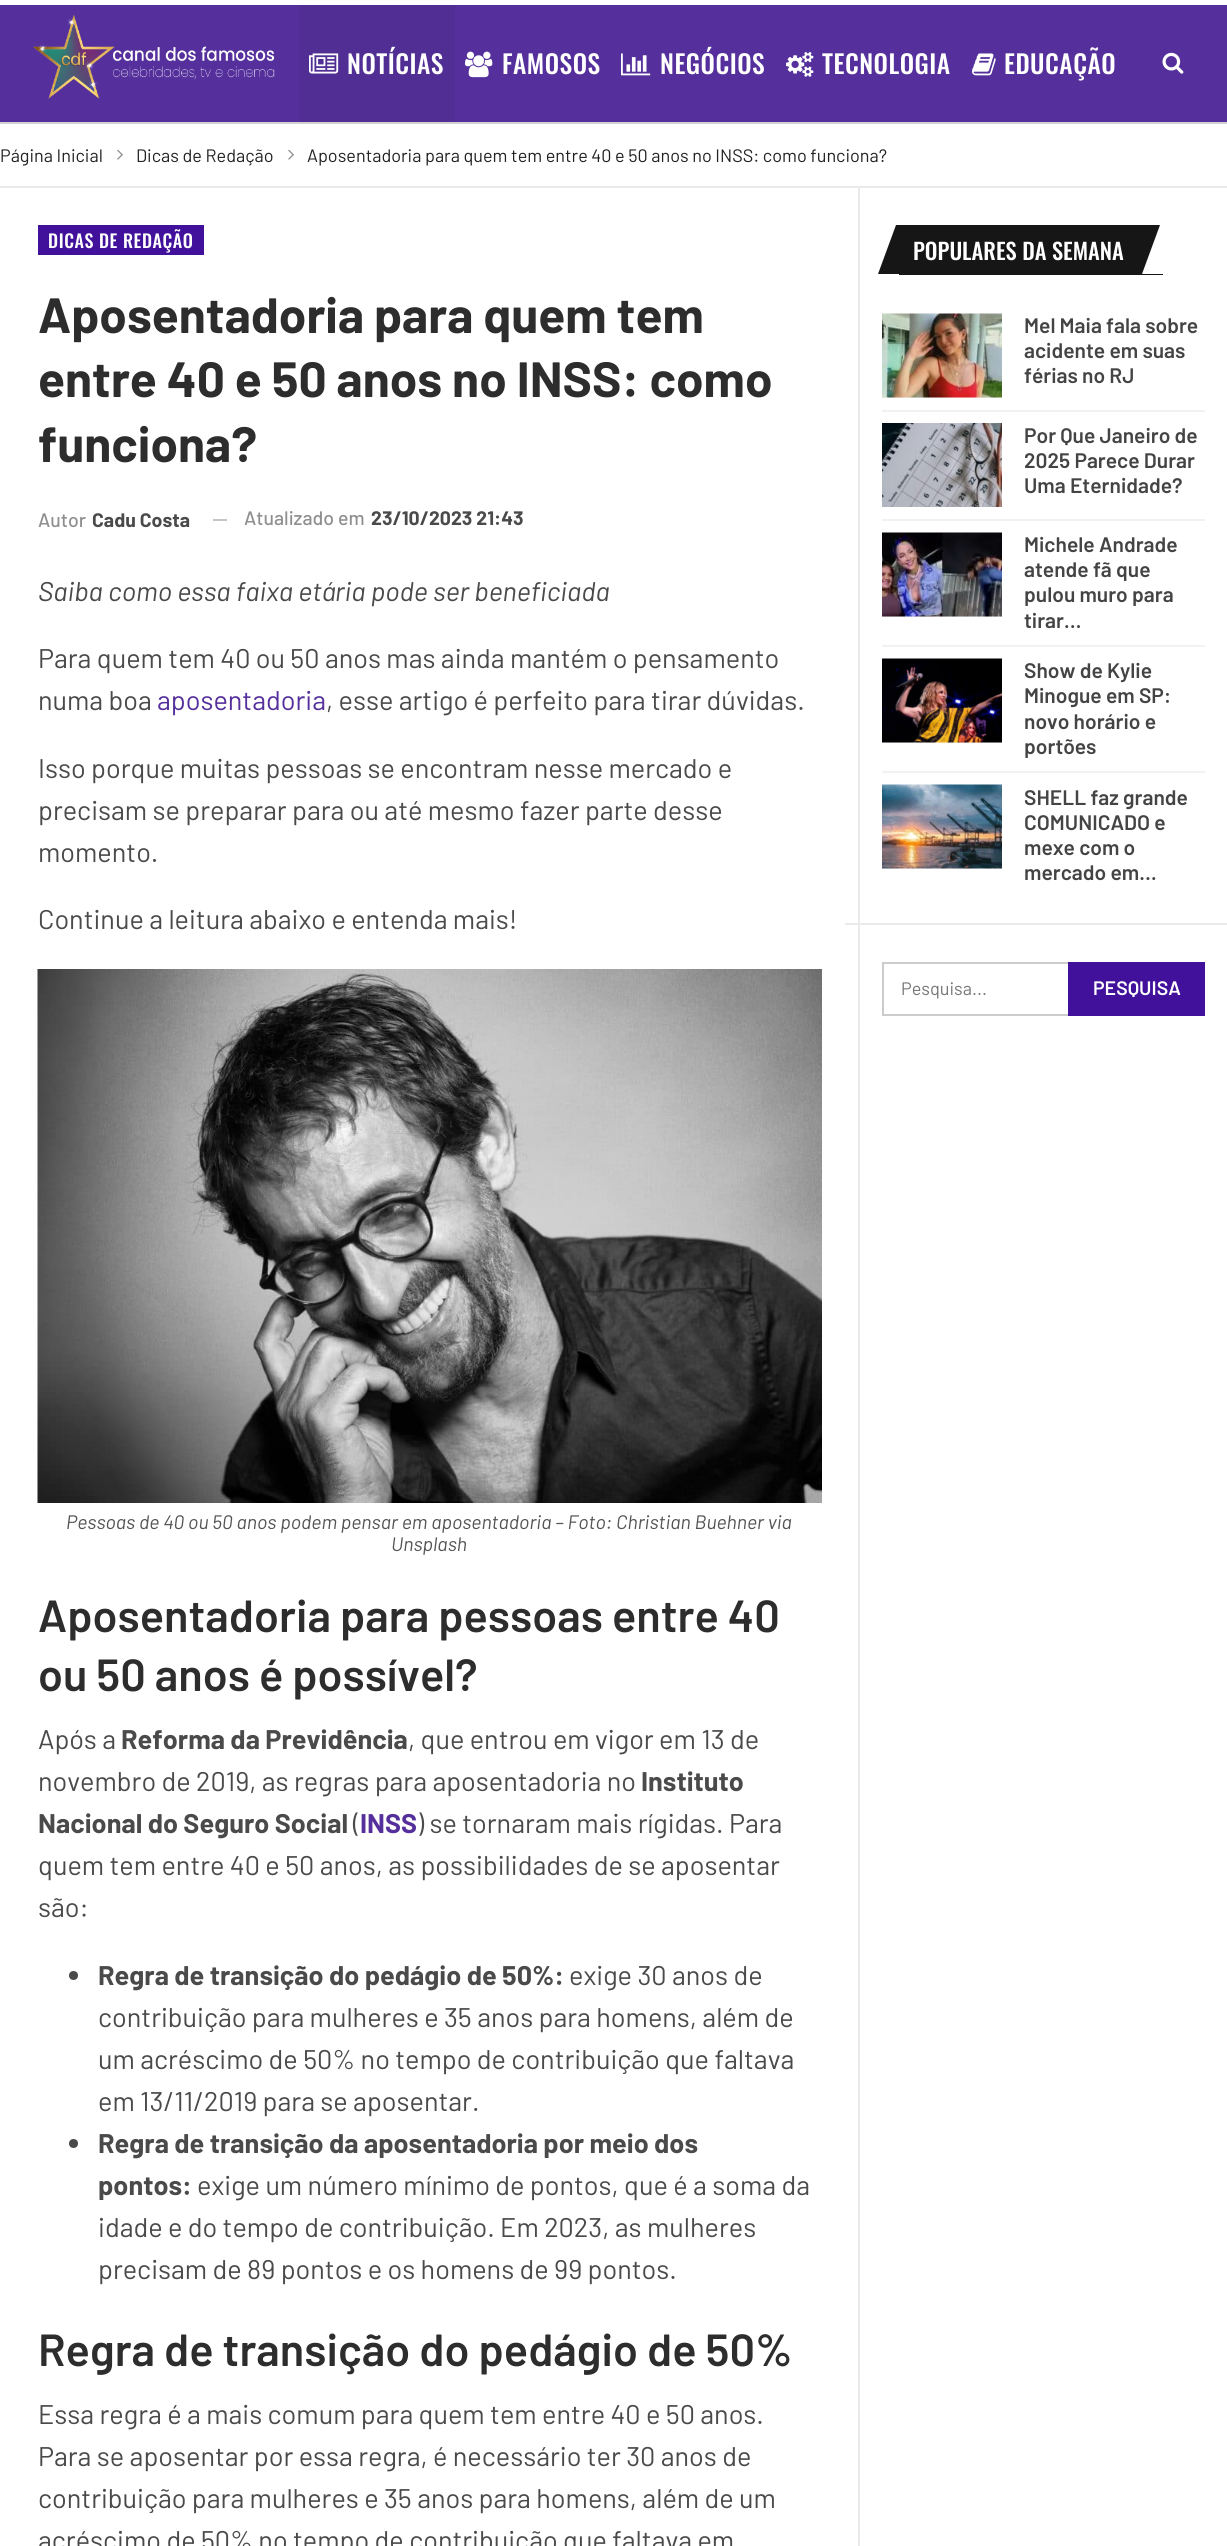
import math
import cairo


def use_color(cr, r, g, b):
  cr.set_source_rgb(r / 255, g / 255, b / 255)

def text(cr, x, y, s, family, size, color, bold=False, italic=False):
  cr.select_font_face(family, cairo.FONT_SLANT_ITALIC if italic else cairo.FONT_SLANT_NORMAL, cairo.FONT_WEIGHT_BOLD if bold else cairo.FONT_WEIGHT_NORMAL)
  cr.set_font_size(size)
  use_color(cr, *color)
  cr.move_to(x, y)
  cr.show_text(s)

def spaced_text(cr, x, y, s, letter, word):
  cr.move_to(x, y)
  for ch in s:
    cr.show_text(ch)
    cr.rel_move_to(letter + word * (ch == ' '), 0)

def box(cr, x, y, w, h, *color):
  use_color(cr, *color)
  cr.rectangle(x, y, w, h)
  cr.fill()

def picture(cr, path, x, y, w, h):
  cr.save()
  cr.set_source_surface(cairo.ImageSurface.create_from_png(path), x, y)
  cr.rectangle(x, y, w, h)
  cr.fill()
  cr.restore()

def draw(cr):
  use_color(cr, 255, 255, 255)
  cr.paint()
  box(cr, 0, 122, 1227, 2, 209, 209, 209)
  box(cr, 0, 5, 1227, 117, 85, 48, 156)
  picture(cr, "img_01.png", 33, 15, 242, 84)
  box(cr, 299, 5, 156, 117, 81, 46, 148)
  picture(cr, "img_02.png", 309, 53, 30, 21)
  picture(cr, "img_03.png", 465, 51, 28, 27)
  picture(cr, "img_04.png", 621, 53, 30, 23)
  picture(cr, "img_05.png", 786, 51, 28, 26)
  picture(cr, "img_06.png", 972, 53, 24, 23)
  picture(cr, "img_07.png", 1162, 52, 22, 22)
  box(cr, 0, 186, 1227, 2, 234, 234, 234)
  picture(cr, "img_08.png", 117, 149, 6, 11)
  picture(cr, "img_08.png", 288, 149, 6, 11)
  box(cr, 38, 225, 166, 30, 65, 17, 155)
  box(cr, 213, 519, 14, 2, 196, 196, 196)
  picture(cr, "img_09.png", 37, 969, 785, 534)
  use_color(cr, 74, 74, 74)
  cr.arc(73.5, 1975.5, 4.5, 0, 2 * math.pi)
  cr.fill()
  cr.arc(73.5, 2143.5, 4.5, 0, 2 * math.pi)
  cr.fill()
  box(cr, 858, 188, 2, 2358, 234, 234, 234)
  box(cr, 899, 225, 264, 50, 22, 22, 22)
  use_color(cr, 255, 255, 255)
  cr.new_path()
  cr.move_to(1160, 225)
  cr.line_to(1184, 225)
  cr.line_to(1166, 274)
  cr.line_to(1142, 274)
  cr.close_path()
  cr.fill()
  box(cr, 882, 410, 323, 2, 242, 242, 242)
  box(cr, 882, 397, 120, 1, 245, 245, 245)
  picture(cr, "img_10.png", 882, 313, 120, 85)
  box(cr, 882, 519, 323, 2, 242, 242, 242)
  picture(cr, "img_11.png", 882, 423, 120, 84)
  box(cr, 882, 645, 323, 2, 242, 242, 242)
  box(cr, 882, 616, 120, 1, 245, 245, 245)
  picture(cr, "img_12.png", 882, 532, 120, 85)
  box(cr, 882, 771, 323, 2, 242, 242, 242)
  box(cr, 882, 742, 120, 1, 245, 245, 245)
  picture(cr, "img_13.png", 882, 658, 120, 85)
  box(cr, 882, 868, 120, 1, 245, 245, 245)
  picture(cr, "img_14.png", 882, 784, 120, 85)
  box(cr, 845, 923, 382, 2, 234, 234, 234)
  cr.rectangle(883, 963, 321, 52)
  use_color(cr, 204, 204, 204)
  cr.stroke()
  box(cr, 1068, 962, 137, 54, 65, 17, 155)
  cr.select_font_face("Oswald Medium")
  cr.set_font_size(25.5)
  use_color(cr, 255, 255, 255)
  spaced_text(cr, 347, 74, "NOTÍCIAS", 0.5, 0)
  spaced_text(cr, 502, 74, "FAMOSOS", 0.5, 0)
  spaced_text(cr, 660, 74, "NEGÓCIOS", 0.5, 0)
  spaced_text(cr, 822, 74, "TECNOLOGIA", 0.5, 0)
  spaced_text(cr, 1004, 74, "EDUCAÇÃO", 0.5, 0)
  text(cr, 0, 162, "Página Inicial", "Barlow", 18, (34, 34, 34))
  text(cr, 136, 162, "Dicas de Redação", "Barlow", 18, (34, 34, 34))
  text(cr, 307, 162, "Aposentadoria para quem tem entre 40 e 50 anos no INSS: como funciona?", "Barlow", 18, (34, 34, 34))
  cr.select_font_face("Oswald Medium")
  use_color(cr, 255, 255, 255)
  spaced_text(cr, 48, 248, "DICAS DE REDAÇÃO", 0.6, 0)
  text(cr, 38, 333, "Aposentadoria para quem tem", "Barlow", 49.5, (45, 45, 45), bold=True)
  text(cr, 38, 397, "entre 40 e 50 anos no INSS: como", "Barlow", 49.5, (45, 45, 45), bold=True)
  text(cr, 38, 462, "funciona?", "Barlow", 49.5, (45, 45, 45), bold=True)
  text(cr, 38, 527, "Autor", "Barlow Medium", 19.5, (143, 143, 143))
  text(cr, 92, 527, "Cadu Costa", "Barlow", 19.5, (74, 74, 74), bold=True)
  text(cr, 244, 525, "Atualizado em", "Barlow Medium", 19.5, (143, 143, 143))
  text(cr, 371, 525, "23/10/2023 21:43", "Barlow", 19.5, (74, 74, 74), bold=True)
  text(cr, 38, 601, "Saiba como essa faixa etária pode ser beneficiada", "Barlow", 27, (74, 74, 74), italic=True)
  text(cr, 38, 668, "Para quem tem 40 ou 50 anos mas ainda mantém o pensamento", "Barlow", 27, (74, 74, 74))
  text(cr, 38, 710, "numa boa", "Barlow", 27, (74, 74, 74))
  text(cr, 157, 710, "aposentadoria", "Barlow", 27, (85, 48, 156))
  text(cr, 326, 710, ", esse artigo é perfeito para tirar dúvidas.", "Barlow", 27, (74, 74, 74))
  text(cr, 38, 778, "Isso porque muitas pessoas se encontram nesse mercado e", "Barlow", 27, (74, 74, 74))
  text(cr, 38, 820, "precisam se preparar para ou até mesmo fazer parte desse", "Barlow", 27, (74, 74, 74))
  text(cr, 38, 862, "momento.", "Barlow", 27, (74, 74, 74))
  text(cr, 38, 929, "Continue a leitura abaixo e entenda mais!", "Barlow", 27, (74, 74, 74))
  text(cr, 66, 1529, "Pessoas de 40 ou 50 anos podem pensar em aposentadoria – Foto: Christian Buehner via", "Barlow", 19.5, (84, 84, 84), italic=True)
  text(cr, 391, 1551, "Unsplash", "Barlow", 19.5, (84, 84, 84), italic=True)
  text(cr, 38, 1632, "Aposentadoria para pessoas entre 40", "Barlow SemiBold", 45, (45, 45, 45))
  text(cr, 38, 1691, "ou 50 anos é possível?", "Barlow SemiBold", 45, (45, 45, 45))
  text(cr, 38, 1749, "Após a", "Barlow", 27, (74, 74, 74))
  text(cr, 121, 1749, "Reforma da Previdência", "Barlow", 27, (74, 74, 74), bold=True)
  text(cr, 408, 1749, ", que entrou em vigor em 13 de", "Barlow", 27, (74, 74, 74))
  text(cr, 38, 1791, "novembro de 2019, as regras para aposentadoria no", "Barlow", 27, (74, 74, 74))
  text(cr, 641, 1791, "Instituto", "Barlow", 27, (74, 74, 74), bold=True)
  text(cr, 38, 1833, "Nacional do Seguro Social", "Barlow", 27, (74, 74, 74), bold=True)
  text(cr, 353, 1833, "(", "Barlow", 27, (74, 74, 74))
  text(cr, 360, 1833, "INSS", "Barlow", 27, (85, 48, 156), bold=True)
  text(cr, 417, 1833, ") se tornaram mais rígidas. Para", "Barlow", 27, (74, 74, 74))
  text(cr, 38, 1875, "quem tem entre 40 e 50 anos, as possibilidades de se aposentar", "Barlow", 27, (74, 74, 74))
  text(cr, 38, 1917, "são:", "Barlow", 27, (74, 74, 74))
  text(cr, 98, 1985, "Regra de transição do pedágio de 50%:", "Barlow", 27, (74, 74, 74), bold=True)
  text(cr, 569, 1985, "exige 30 anos de", "Barlow", 27, (74, 74, 74))
  text(cr, 98, 2027, "contribuição para mulheres e 35 anos para homens, além de", "Barlow", 27, (74, 74, 74))
  text(cr, 98, 2069, "um acréscimo de 50% no tempo de contribuição que faltava", "Barlow", 27, (74, 74, 74))
  text(cr, 98, 2111, "em 13/11/2019 para se aposentar.", "Barlow", 27, (74, 74, 74))
  text(cr, 98, 2153, "Regra de transição da aposentadoria por meio dos", "Barlow", 27, (74, 74, 74), bold=True)
  text(cr, 98, 2195, "pontos:", "Barlow", 27, (74, 74, 74), bold=True)
  text(cr, 197, 2195, "exige um número mínimo de pontos, que é a soma da", "Barlow", 27, (74, 74, 74))
  text(cr, 98, 2237, "idade e do tempo de contribuição. Em 2023, as mulheres", "Barlow", 27, (74, 74, 74))
  text(cr, 98, 2279, "precisam de 89 pontos e os homens de 99 pontos.", "Barlow", 27, (74, 74, 74))
  text(cr, 38, 2366, "Regra de transição do pedágio de 50%", "Barlow SemiBold", 45, (45, 45, 45))
  text(cr, 38, 2424, "Essa regra é a mais comum para quem tem entre 40 e 50 anos.", "Barlow", 27, (74, 74, 74))
  text(cr, 38, 2466, "Para se aposentar por essa regra, é necessário ter 30 anos de", "Barlow", 27, (74, 74, 74))
  text(cr, 38, 2508, "contribuição para mulheres e 35 anos para homens, além de um", "Barlow", 27, (74, 74, 74))
  text(cr, 38, 2550, "acréscimo de 50% no tempo de contribuição que faltava em", "Barlow", 27, (74, 74, 74))
  text(cr, 913, 260, "POPULARES DA SEMANA", "Oswald Medium", 22.5, (255, 255, 255))
  use_color(cr, 22, 22, 22)
  cr.new_path()
  cr.move_to(896, 225)
  cr.line_to(919, 225)
  cr.line_to(901, 274)
  cr.line_to(878, 274)
  cr.close_path()
  cr.fill()
  text(cr, 1024, 333, "Mel Maia fala sobre", "Barlow SemiBold", 21, (68, 68, 68))
  text(cr, 1024, 358, "acidente em suas", "Barlow SemiBold", 21, (68, 68, 68))
  text(cr, 1024, 383, "férias no RJ", "Barlow SemiBold", 21, (68, 68, 68))
  text(cr, 1024, 443, "Por Que Janeiro de", "Barlow SemiBold", 21, (68, 68, 68))
  text(cr, 1024, 468, "2025 Parece Durar", "Barlow SemiBold", 21, (68, 68, 68))
  text(cr, 1024, 493, "Uma Eternidade?", "Barlow SemiBold", 21, (68, 68, 68))
  text(cr, 1024, 552, "Michele Andrade", "Barlow SemiBold", 21, (68, 68, 68))
  text(cr, 1024, 577, "atende fã que", "Barlow SemiBold", 21, (68, 68, 68))
  text(cr, 1024, 602, "pulou muro para", "Barlow SemiBold", 21, (68, 68, 68))
  text(cr, 1024, 628, "tirar…", "Barlow SemiBold", 21, (68, 68, 68))
  text(cr, 1024, 678, "Show de Kylie", "Barlow SemiBold", 21, (68, 68, 68))
  text(cr, 1024, 703, "Minogue em SP:", "Barlow SemiBold", 21, (68, 68, 68))
  text(cr, 1024, 729, "novo horário e", "Barlow SemiBold", 21, (68, 68, 68))
  text(cr, 1024, 754, "portões", "Barlow SemiBold", 21, (68, 68, 68))
  text(cr, 1024, 805, "SHELL faz grande", "Barlow SemiBold", 21, (68, 68, 68))
  text(cr, 1024, 830, "COMUNICADO e", "Barlow SemiBold", 21, (68, 68, 68))
  text(cr, 1024, 855, "mexe com o", "Barlow SemiBold", 21, (68, 68, 68))
  text(cr, 1024, 880, "mercado em…", "Barlow SemiBold", 21, (68, 68, 68))
  text(cr, 901, 995, "Pesquisa...", "Barlow", 18, (117, 117, 117))
  text(cr, 1093, 995, "PESQUISA", "Barlow SemiBold", 19.5, (255, 255, 255))


surface = cairo.ImageSurface(cairo.FORMAT_RGB24, 1227, 2546)
cr = cairo.Context(surface)
options = cairo.FontOptions()
options.set_hint_metrics(cairo.HINT_METRICS_OFF)
options.set_hint_style(cairo.HINT_STYLE_NONE)
cr.set_font_options(options)
cr.set_miter_limit(4)
draw(cr)
surface.write_to_png("out.png")
